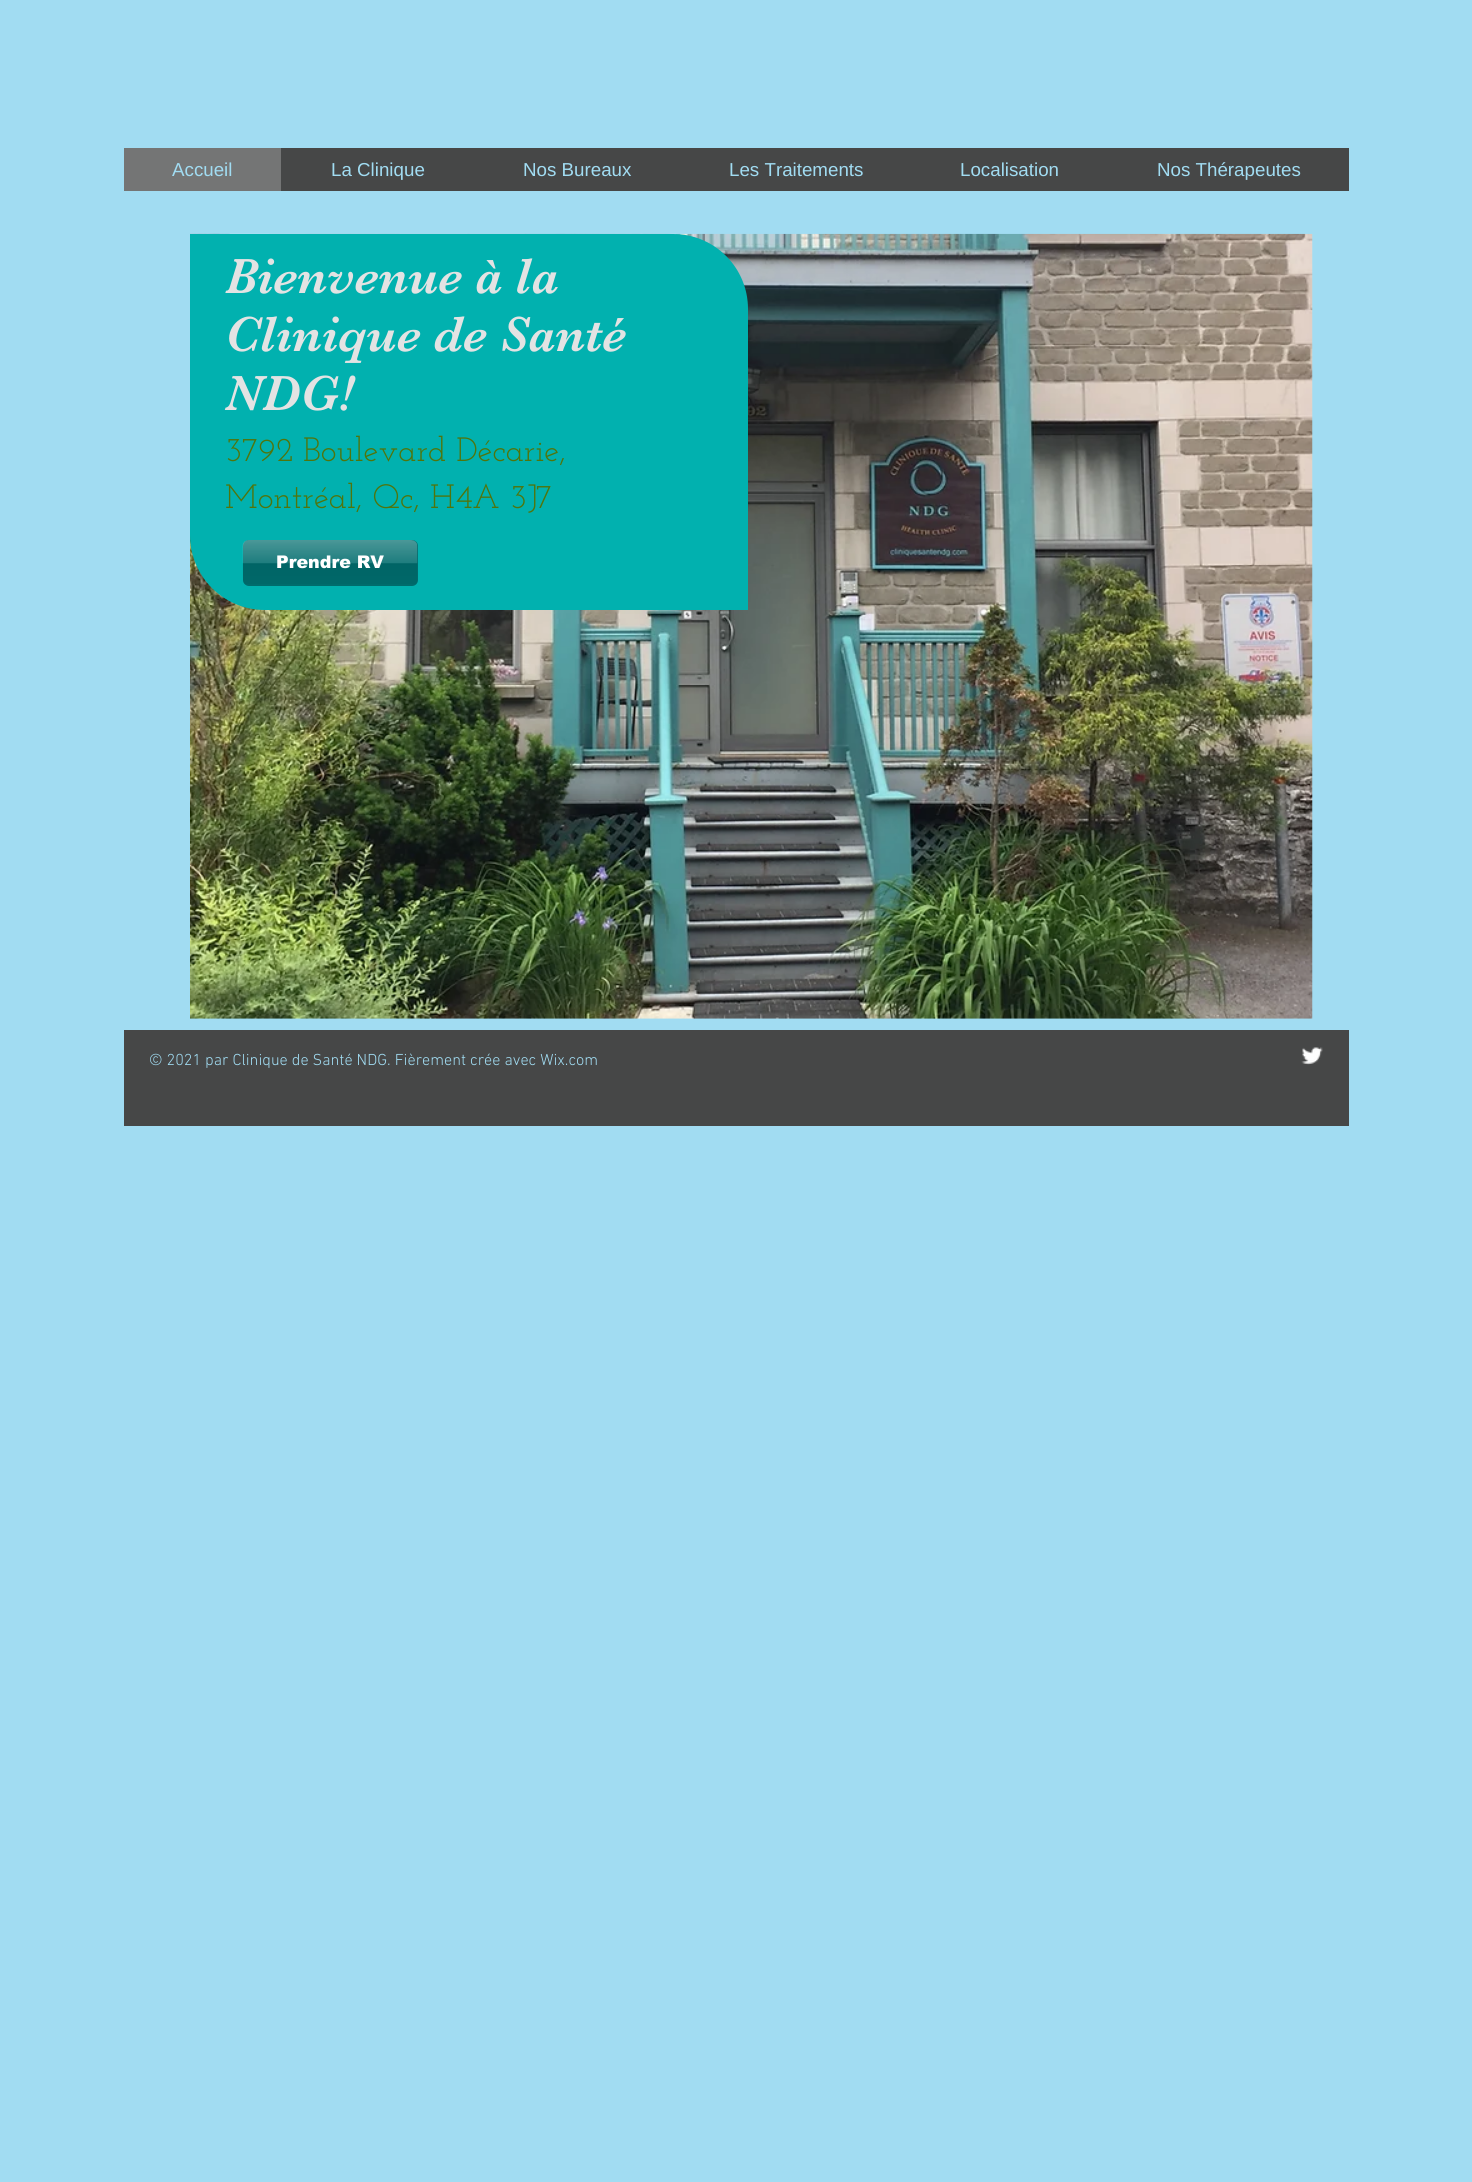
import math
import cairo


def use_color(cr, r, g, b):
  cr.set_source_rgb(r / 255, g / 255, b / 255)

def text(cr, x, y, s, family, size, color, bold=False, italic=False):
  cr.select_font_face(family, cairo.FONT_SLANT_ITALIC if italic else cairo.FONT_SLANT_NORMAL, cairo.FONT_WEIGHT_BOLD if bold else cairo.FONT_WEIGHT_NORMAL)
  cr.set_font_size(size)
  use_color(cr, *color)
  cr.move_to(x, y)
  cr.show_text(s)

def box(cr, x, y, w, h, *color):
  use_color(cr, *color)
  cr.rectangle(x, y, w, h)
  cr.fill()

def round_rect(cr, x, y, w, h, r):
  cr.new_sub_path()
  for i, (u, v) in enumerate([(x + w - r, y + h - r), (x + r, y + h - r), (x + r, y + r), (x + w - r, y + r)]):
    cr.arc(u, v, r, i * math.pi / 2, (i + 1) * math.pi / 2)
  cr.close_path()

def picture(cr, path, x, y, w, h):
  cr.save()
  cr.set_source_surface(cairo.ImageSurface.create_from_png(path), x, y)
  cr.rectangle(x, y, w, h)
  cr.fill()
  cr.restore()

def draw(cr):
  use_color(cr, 161, 220, 242)
  cr.paint()
  box(cr, 281, 148, 1068, 43, 70, 71, 71)
  box(cr, 124, 148, 157, 43, 116, 117, 117)
  picture(cr, "img_01.png", 190, 233, 1123, 786)
  use_color(cr, 1, 177, 175)
  cr.new_path()
  cr.move_to(190, 234)
  cr.line_to(673, 234)
  cr.curve_to(714.5, 234, 748, 267.5, 748, 309)
  cr.line_to(748, 610)
  cr.line_to(265, 610)
  cr.curve_to(223.5, 610, 190, 576.5, 190, 535)
  cr.close_path()
  cr.fill()
  use_color(cr, 0, 108, 109)
  round_rect(cr, 243, 540, 175, 46, 6)
  cr.fill()
  picture(cr, "img_02.png", 242, 540, 176, 44)
  box(cr, 124, 1030, 1225, 96, 70, 71, 71)
  picture(cr, "img_03.png", 1301, 1047, 22, 18)
  text(cr, 172, 176, "Accueil", "Liberation Sans", 18.75, (161, 220, 242))
  text(cr, 331, 176, "La Clinique", "Liberation Sans", 18.75, (161, 220, 242))
  text(cr, 523, 176, "Nos Bureaux", "Liberation Sans", 18.75, (161, 220, 242))
  text(cr, 729, 176, "Les Traitements", "Liberation Sans", 18.75, (161, 220, 242))
  text(cr, 960, 176, "Localisation", "Liberation Sans", 18.75, (161, 220, 242))
  text(cr, 1157, 176, "Nos Thérapeutes", "Liberation Sans", 18.75, (161, 220, 242))
  text(cr, 225, 293, "Bienvenue à la", "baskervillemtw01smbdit", 51.25, (227, 227, 227))
  text(cr, 225, 351, "Clinique de Santé", "baskervillemtw01smbdit", 51.25, (227, 227, 227))
  text(cr, 225, 410, "NDG!", "baskervillemtw01smbdit", 51.25, (227, 227, 227))
  text(cr, 225, 461, "3792 Boulevard Décarie,", "Josefin Slab", 33.75, (80, 117, 12))
  text(cr, 225, 508, "Montréal, Qc, H4A 3J7", "Josefin Slab", 33.75, (80, 117, 12))
  text(cr, 276, 568, "Prendre RV", "arial Black", 17.5, (255, 255, 255))
  text(cr, 149, 1065, "© 2021 par Clinique de Santé NDG. Fièrement crée avec Wix.com", "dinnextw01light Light", 16.25, (161, 220, 242))


surface = cairo.ImageSurface(cairo.FORMAT_RGB24, 1472, 2182)
cr = cairo.Context(surface)
options = cairo.FontOptions()
options.set_hint_metrics(cairo.HINT_METRICS_OFF)
options.set_hint_style(cairo.HINT_STYLE_NONE)
cr.set_font_options(options)
cr.set_miter_limit(4)
draw(cr)
surface.write_to_png("out.png")
